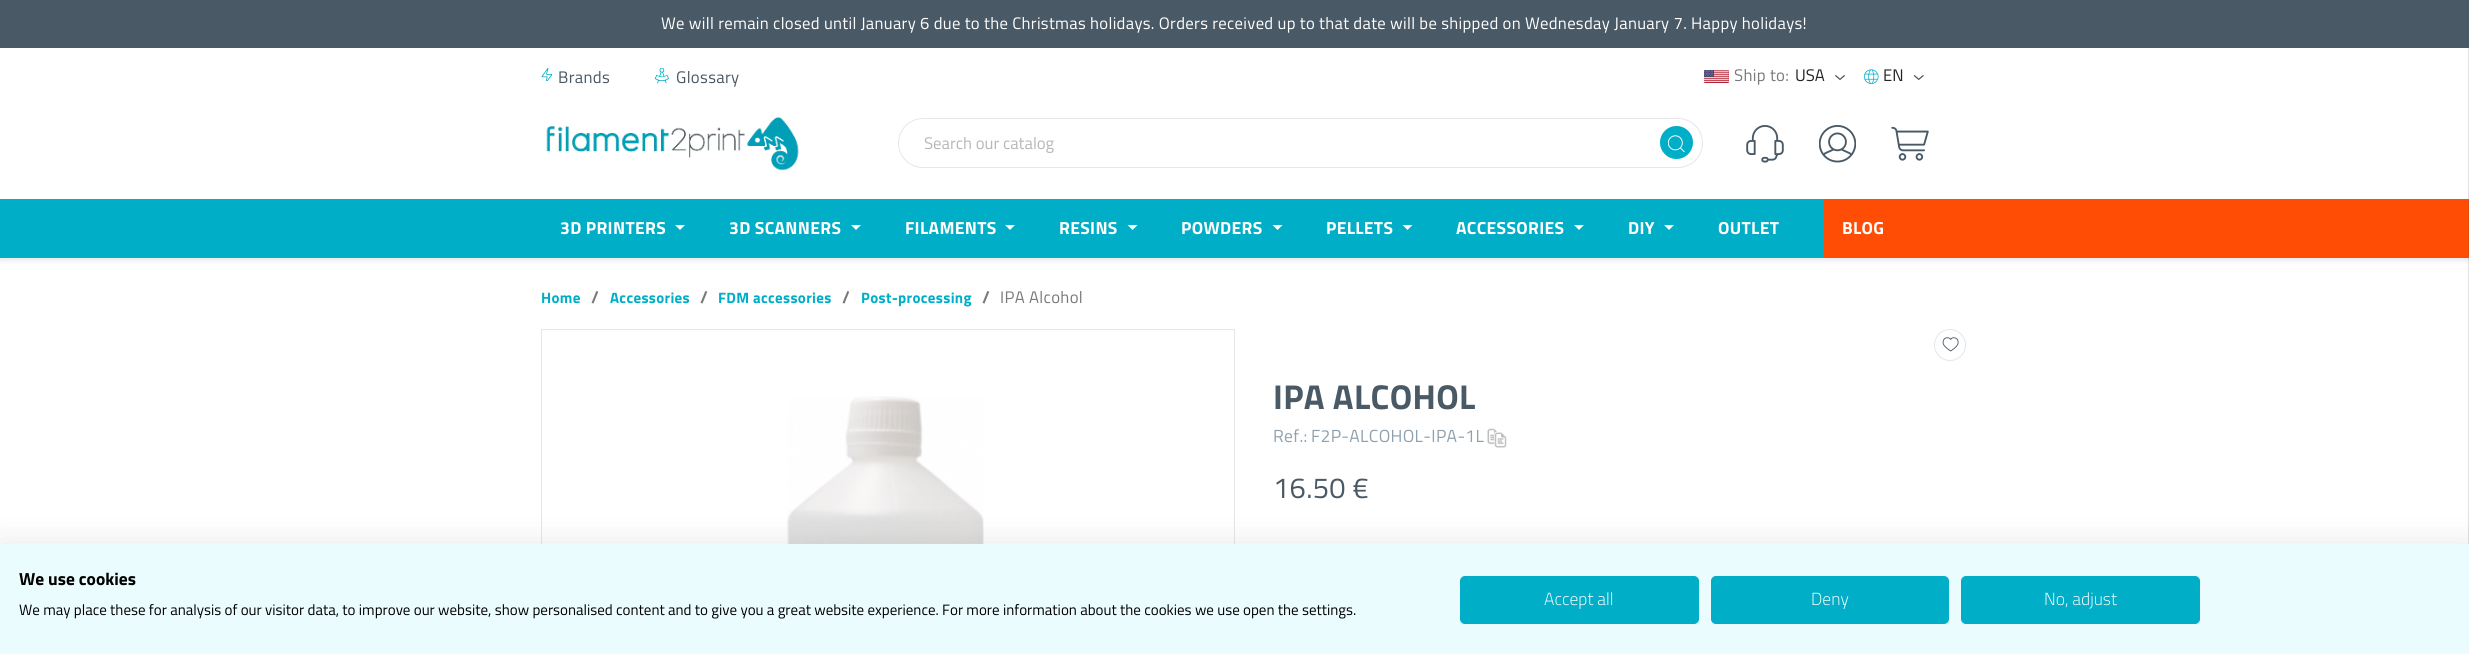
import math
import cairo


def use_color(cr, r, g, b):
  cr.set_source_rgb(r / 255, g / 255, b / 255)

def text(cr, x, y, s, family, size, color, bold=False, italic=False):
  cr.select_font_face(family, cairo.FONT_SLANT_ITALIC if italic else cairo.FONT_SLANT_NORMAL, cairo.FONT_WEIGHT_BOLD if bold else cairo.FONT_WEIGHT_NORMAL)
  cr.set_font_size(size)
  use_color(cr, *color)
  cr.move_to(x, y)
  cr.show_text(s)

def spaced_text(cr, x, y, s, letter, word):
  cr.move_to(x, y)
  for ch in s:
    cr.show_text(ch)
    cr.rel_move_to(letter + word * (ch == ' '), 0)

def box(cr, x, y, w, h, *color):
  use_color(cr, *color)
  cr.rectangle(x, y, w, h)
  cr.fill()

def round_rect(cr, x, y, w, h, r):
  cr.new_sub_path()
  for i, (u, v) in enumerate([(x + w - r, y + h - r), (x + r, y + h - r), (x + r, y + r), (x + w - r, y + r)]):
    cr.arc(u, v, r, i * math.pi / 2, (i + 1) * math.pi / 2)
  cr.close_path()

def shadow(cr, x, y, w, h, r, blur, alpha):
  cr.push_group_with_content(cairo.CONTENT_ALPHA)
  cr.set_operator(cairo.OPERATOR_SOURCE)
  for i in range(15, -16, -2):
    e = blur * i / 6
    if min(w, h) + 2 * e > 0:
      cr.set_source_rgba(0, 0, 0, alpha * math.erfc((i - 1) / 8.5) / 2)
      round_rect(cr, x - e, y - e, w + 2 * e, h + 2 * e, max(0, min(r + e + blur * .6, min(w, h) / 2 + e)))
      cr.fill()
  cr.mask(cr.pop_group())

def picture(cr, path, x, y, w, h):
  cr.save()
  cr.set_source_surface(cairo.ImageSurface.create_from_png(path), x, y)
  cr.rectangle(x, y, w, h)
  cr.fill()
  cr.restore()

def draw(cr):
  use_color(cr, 255, 255, 255)
  cr.paint()
  use_color(cr, 0, 0, 0)
  shadow(cr, 0, 3, 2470, 257, 0, 3, 0.11)
  box(cr, 0, 48, 2469, 151, 255, 255, 255)
  box(cr, 0, 0, 2469, 48, 73, 89, 101)
  picture(cr, "img_01.png", 541, 68, 12, 13)
  picture(cr, "img_02.png", 654, 68, 15, 16)
  picture(cr, "img_03.png", 1704, 70, 25, 13)
  picture(cr, "img_04.png", 1835, 75, 10, 5)
  picture(cr, "img_05.png", 1864, 69, 15, 15)
  picture(cr, "img_06.png", 1914, 75, 10, 5)
  picture(cr, "img_07.png", 546, 117, 253, 54)
  round_rect(cr, 898.5, 118.5, 804, 49, 24.5)
  use_color(cr, 227, 231, 235)
  cr.set_line_width(1)
  cr.stroke()
  use_color(cr, 0, 174, 199)
  cr.arc(1676.5, 142.5, 16.5, 0, 2 * math.pi)
  cr.fill()
  picture(cr, "img_08.png", 1668, 135, 17, 18)
  picture(cr, "img_09.png", 1746, 125, 38, 38)
  picture(cr, "img_10.png", 1819, 125, 37, 38)
  use_color(cr, 255, 255, 255)
  cr.new_path()
  cr.move_to(1856, 181)
  cr.line_to(1819, 181)
  cr.line_to(1837.5, 162.5)
  cr.close_path()
  cr.fill()
  picture(cr, "img_11.png", 1891, 126, 38, 35)
  box(cr, 0, 199, 1824, 59, 0, 174, 199)
  box(cr, 1824, 199, 645, 59, 255, 77, 6)
  use_color(cr, 255, 255, 255)
  cr.new_path()
  cr.move_to(675, 225)
  cr.line_to(685, 225)
  cr.line_to(680, 230)
  cr.close_path()
  cr.fill()
  cr.new_path()
  cr.move_to(851, 225)
  cr.line_to(861, 225)
  cr.line_to(856, 230)
  cr.close_path()
  cr.fill()
  cr.new_path()
  cr.move_to(1005, 225)
  cr.line_to(1015, 225)
  cr.line_to(1010, 230)
  cr.close_path()
  cr.fill()
  cr.new_path()
  cr.move_to(1127.5, 225)
  cr.line_to(1137.5, 225)
  cr.line_to(1132.5, 230)
  cr.close_path()
  cr.fill()
  cr.new_path()
  cr.move_to(1272.5, 225)
  cr.line_to(1282.5, 225)
  cr.line_to(1277.5, 230)
  cr.close_path()
  cr.fill()
  cr.new_path()
  cr.move_to(1402.5, 225)
  cr.line_to(1412.5, 225)
  cr.line_to(1407.5, 230)
  cr.close_path()
  cr.fill()
  cr.new_path()
  cr.move_to(1574, 225)
  cr.line_to(1584, 225)
  cr.line_to(1579, 230)
  cr.close_path()
  cr.fill()
  cr.new_path()
  cr.move_to(1664, 225)
  cr.line_to(1674, 225)
  cr.line_to(1669, 230)
  cr.close_path()
  cr.fill()
  use_color(cr, 68, 68, 68)
  shadow(cr, 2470, 0, 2, 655, 0, 1, 1)
  cr.rectangle(541.5, 329.5, 693, 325)
  use_color(cr, 227, 231, 235)
  cr.stroke()
  picture(cr, "img_12.png", 787, 396, 197, 148)
  cr.arc(1950, 345, 15.5, 0, 2 * math.pi)
  cr.stroke()
  picture(cr, "img_13.png", 1942, 337, 17, 15)
  picture(cr, "img_14.png", 1487, 428, 20, 20)
  use_color(cr, 68, 68, 68)
  shadow(cr, 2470, 0, 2, 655, 0, 1, 1)
  use_color(cr, 0, 0, 0)
  shadow(cr, 0, 544, 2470, 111, 0, 15, 0.1)
  box(cr, 0, 544, 2469, 110, 235, 252, 255)
  use_color(cr, 0, 174, 199)
  round_rect(cr, 1460.5, 576.5, 238, 47, 4.5)
  cr.fill_preserve()
  cr.stroke()
  round_rect(cr, 1711.5, 576.5, 237, 47, 4.5)
  cr.fill_preserve()
  cr.stroke()
  round_rect(cr, 1961.5, 576.5, 238, 47, 4.5)
  cr.fill_preserve()
  cr.stroke()
  cr.select_font_face("Cairo")
  cr.set_font_size(16.65)
  use_color(cr, 255, 255, 255)
  spaced_text(cr, 661, 29, "We will remain closed until January 6 due to the Christmas holidays. Orders received up to that date will be shipped on Wednesday January 7. Happy holidays!", 0.33, 0)
  cr.set_font_size(16.75)
  use_color(cr, 73, 89, 101)
  spaced_text(cr, 558, 83, "Brands", 0.33, 0)
  spaced_text(cr, 676, 83, "Glossary", 0.33, 0)
  use_color(cr, 122, 122, 122)
  spaced_text(cr, 1734, 81, "Ship to:", 0.33, 0)
  text(cr, 1795, 81, "USA", "Cairo", 16.75, (35, 35, 35))
  text(cr, 1883, 81, "EN", "Cairo", 16.75, (35, 35, 35))
  text(cr, 924, 149, "Search our catalog", "Cairo", 16.75, (183, 183, 183))
  cr.select_font_face("Cairo", cairo.FONT_SLANT_NORMAL, cairo.FONT_WEIGHT_BOLD)
  cr.set_font_size(17.5)
  use_color(cr, 255, 255, 255)
  spaced_text(cr, 560, 234, "3D PRINTERS", 0.33, 0)
  spaced_text(cr, 729, 234, "3D SCANNERS", 0.33, 0)
  spaced_text(cr, 905, 234, "FILAMENTS", 0.33, 0)
  spaced_text(cr, 1059, 234, "RESINS", 0.33, 0)
  spaced_text(cr, 1181, 234, "POWDERS", 0.33, 0)
  spaced_text(cr, 1326, 234, "PELLETS", 0.33, 0)
  spaced_text(cr, 1456, 234, "ACCESSORIES", 0.33, 0)
  spaced_text(cr, 1628, 234, "DIY", 0.33, 0)
  spaced_text(cr, 1718, 234, "OUTLET", 0.33, 0)
  spaced_text(cr, 1842, 234, "BLOG", 0.33, 0)
  cr.set_font_size(15)
  use_color(cr, 0, 174, 199)
  spaced_text(cr, 541, 303, "Home", 0.33, 0)
  cr.set_font_size(16.75)
  use_color(cr, 122, 122, 122)
  spaced_text(cr, 591, 303, "/", 0.33, 0)
  cr.set_font_size(15)
  use_color(cr, 0, 174, 199)
  spaced_text(cr, 610, 303, "Accessories", 0.33, 0)
  cr.set_font_size(16.75)
  use_color(cr, 122, 122, 122)
  spaced_text(cr, 700, 303, "/", 0.33, 0)
  cr.set_font_size(15)
  use_color(cr, 0, 174, 199)
  spaced_text(cr, 718, 303, "FDM accessories", 0.33, 0)
  cr.set_font_size(16.75)
  use_color(cr, 122, 122, 122)
  spaced_text(cr, 842, 303, "/", 0.33, 0)
  cr.set_font_size(15)
  use_color(cr, 0, 174, 199)
  spaced_text(cr, 861, 303, "Post-processing", 0.33, 0)
  cr.set_font_size(16.75)
  use_color(cr, 122, 122, 122)
  spaced_text(cr, 982, 303, "/", 0.33, 0)
  cr.select_font_face("Cairo")
  spaced_text(cr, 1000, 303, "IPA Alcohol", 0.33, 0)
  cr.select_font_face("Cairo", cairo.FONT_SLANT_NORMAL, cairo.FONT_WEIGHT_BOLD)
  cr.set_font_size(34.5)
  use_color(cr, 73, 89, 101)
  spaced_text(cr, 1273, 409, "IPA ALCOHOL", 0.33, 0)
  cr.select_font_face("Cairo")
  cr.set_font_size(17.5)
  use_color(cr, 143, 161, 174)
  spaced_text(cr, 1273, 442, "Ref.:", 0.33, 0)
  spaced_text(cr, 1311, 442, "F2P-ALCOHOL-IPA-1L", 0.33, 0)
  cr.set_font_size(29)
  use_color(cr, 73, 89, 101)
  spaced_text(cr, 1273, 498, "16.50 €", 0.33, 0)
  text(cr, 19, 585, "We use cookies", "Cairo", 17.5, (0, 0, 0), bold=True)
  text(cr, 19, 615, "We may place these for analysis of our visitor data, to improve our website, show personalised content and to give you a great website experience. For more information about the cookies we use open the settings.", "Cairo", 15, (0, 0, 0))
  text(cr, 1544, 605, "Accept all", "Cairo Light", 17.5, (255, 255, 255))
  text(cr, 1811, 605, "Deny", "Cairo Light", 17.5, (255, 255, 255))
  text(cr, 2044, 605, "No, adjust", "Cairo Light", 17.5, (255, 255, 255))


surface = cairo.ImageSurface(cairo.FORMAT_RGB24, 2469, 654)
cr = cairo.Context(surface)
options = cairo.FontOptions()
options.set_hint_metrics(cairo.HINT_METRICS_OFF)
options.set_hint_style(cairo.HINT_STYLE_NONE)
cr.set_font_options(options)
cr.set_miter_limit(4)
draw(cr)
surface.write_to_png("out.png")
